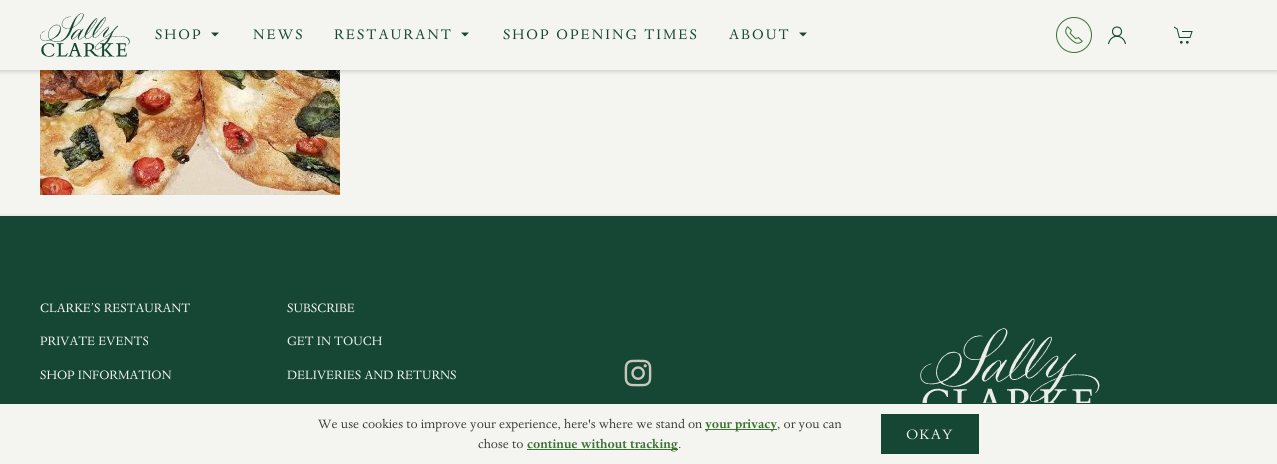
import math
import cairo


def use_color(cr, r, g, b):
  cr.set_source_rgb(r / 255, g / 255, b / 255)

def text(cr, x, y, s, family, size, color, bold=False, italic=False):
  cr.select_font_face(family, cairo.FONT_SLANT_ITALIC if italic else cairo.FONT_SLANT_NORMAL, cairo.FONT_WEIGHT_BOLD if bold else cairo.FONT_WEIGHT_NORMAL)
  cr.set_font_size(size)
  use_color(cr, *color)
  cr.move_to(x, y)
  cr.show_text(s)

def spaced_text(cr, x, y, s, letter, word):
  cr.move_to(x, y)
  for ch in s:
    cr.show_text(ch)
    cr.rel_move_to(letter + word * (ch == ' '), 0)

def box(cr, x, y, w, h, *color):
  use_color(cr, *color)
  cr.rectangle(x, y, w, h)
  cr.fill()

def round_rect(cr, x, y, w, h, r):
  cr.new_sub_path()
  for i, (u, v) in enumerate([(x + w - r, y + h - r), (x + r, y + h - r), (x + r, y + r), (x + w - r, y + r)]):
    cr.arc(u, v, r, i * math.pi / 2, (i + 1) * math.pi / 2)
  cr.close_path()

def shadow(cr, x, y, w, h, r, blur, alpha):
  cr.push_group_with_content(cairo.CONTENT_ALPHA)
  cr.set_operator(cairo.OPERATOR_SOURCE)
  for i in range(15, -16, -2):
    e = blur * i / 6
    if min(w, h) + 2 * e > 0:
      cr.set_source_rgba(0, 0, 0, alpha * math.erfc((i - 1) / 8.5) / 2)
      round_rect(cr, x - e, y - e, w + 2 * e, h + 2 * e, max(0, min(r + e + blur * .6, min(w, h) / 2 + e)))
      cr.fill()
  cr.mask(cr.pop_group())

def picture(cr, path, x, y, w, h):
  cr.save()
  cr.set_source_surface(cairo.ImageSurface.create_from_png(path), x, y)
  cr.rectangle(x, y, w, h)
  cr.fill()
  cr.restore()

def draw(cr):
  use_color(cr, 244, 244, 240)
  cr.paint()
  picture(cr, "img_04.png", 40, 70, 300, 125)
  use_color(cr, 0, 0, 0)
  shadow(cr, 0, 1, 1277, 70, 0, 2.5, 0.2)
  box(cr, 0, 0, 1277, 70, 244, 244, 240)
  picture(cr, "img_01.png", 40, 13, 90, 44)
  use_color(cr, 21, 71, 52)
  cr.new_path()
  cr.move_to(211, 32.5)
  cr.line_to(219, 32.5)
  cr.line_to(215, 36.5)
  cr.close_path()
  cr.fill()
  cr.new_path()
  cr.move_to(461, 32.5)
  cr.line_to(469, 32.5)
  cr.line_to(465, 36.5)
  cr.close_path()
  cr.fill()
  cr.new_path()
  cr.move_to(799, 32.5)
  cr.line_to(807, 32.5)
  cr.line_to(803, 36.5)
  cr.close_path()
  cr.fill()
  cr.arc(1074, 35, 17.5, 0, 2 * math.pi)
  use_color(cr, 60, 113, 52)
  cr.set_line_width(1)
  cr.stroke()
  picture(cr, "img_02.png", 1065, 26, 18, 18)
  cr.arc(1117, 31.5, 4.5, 0, 2 * math.pi)
  use_color(cr, 21, 71, 52)
  cr.set_line_width(1.1)
  cr.stroke()
  cr.new_path()
  cr.move_to(1108.5, 44)
  cr.curve_to(1110.5, 33.5, 1123.5, 34, 1125.5, 44)
  cr.stroke()
  picture(cr, "img_03.png", 1174, 26, 19, 18)
  use_color(cr, 0, 0, 0)
  shadow(cr, 0, 217, 1277, 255, 0, 2.5, 0.2)
  box(cr, 0, 216, 1277, 188, 21, 71, 52)
  picture(cr, "img_05.png", 624, 359, 28, 28)
  picture(cr, "img_06.png", 920, 328, 180, 75)
  box(cr, 0, 404, 1277, 60, 244, 244, 240)
  box(cr, 705, 429, 72, 1, 60, 113, 52)
  box(cr, 527, 449, 151, 1, 60, 113, 52)
  box(cr, 881, 414, 98, 40, 21, 71, 52)
  cr.select_font_face("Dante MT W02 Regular")
  cr.set_font_size(16)
  spaced_text(cr, 155, 39, "SHOP", 2, 0)
  spaced_text(cr, 253, 39, "NEWS", 2, 0)
  spaced_text(cr, 334, 39, "RESTAURANT", 2, 0)
  spaced_text(cr, 503, 39, "SHOP OPENING TIMES", 2, 0)
  spaced_text(cr, 729, 39, "ABOUT", 2, 0)
  text(cr, 40, 312, "CLARKE’S RESTAURANT", "Dante MT W02 Regular", 14, (244, 244, 240))
  text(cr, 40, 345, "PRIVATE EVENTS", "Dante MT W02 Regular", 14, (244, 244, 240))
  text(cr, 40, 379, "SHOP INFORMATION", "Dante MT W02 Regular", 14, (244, 244, 240))
  text(cr, 287, 312, "SUBSCRIBE", "Dante MT W02 Regular", 14, (244, 244, 240))
  text(cr, 287, 345, "GET IN TOUCH", "Dante MT W02 Regular", 14, (244, 244, 240))
  text(cr, 287, 379, "DELIVERIES AND RETURNS", "Dante MT W02 Regular", 14, (244, 244, 240))
  text(cr, 318, 428, "We use cookies to improve your experience, here's where we stand on", "Dante MT W02 Regular", 14, (60, 60, 60))
  text(cr, 705, 428, "your privacy", "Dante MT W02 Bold", 14, (60, 113, 52), bold=True)
  text(cr, 777, 428, ", or you can", "Dante MT W02 Regular", 14, (60, 60, 60))
  text(cr, 478, 448, "chose to", "Dante MT W02 Regular", 14, (60, 60, 60))
  text(cr, 527, 448, "continue without tracking", "Dante MT W02 Bold", 14, (60, 113, 52), bold=True)
  text(cr, 678, 448, ".", "Dante MT W02 Regular", 14, (60, 60, 60))
  cr.select_font_face("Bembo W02")
  cr.set_font_size(15)
  use_color(cr, 244, 244, 240)
  spaced_text(cr, 906, 439, "OKAY", 1, 0)


surface = cairo.ImageSurface(cairo.FORMAT_RGB24, 1277, 464)
cr = cairo.Context(surface)
options = cairo.FontOptions()
options.set_hint_metrics(cairo.HINT_METRICS_OFF)
options.set_hint_style(cairo.HINT_STYLE_NONE)
cr.set_font_options(options)
cr.set_miter_limit(4)
draw(cr)
surface.write_to_png("out.png")
